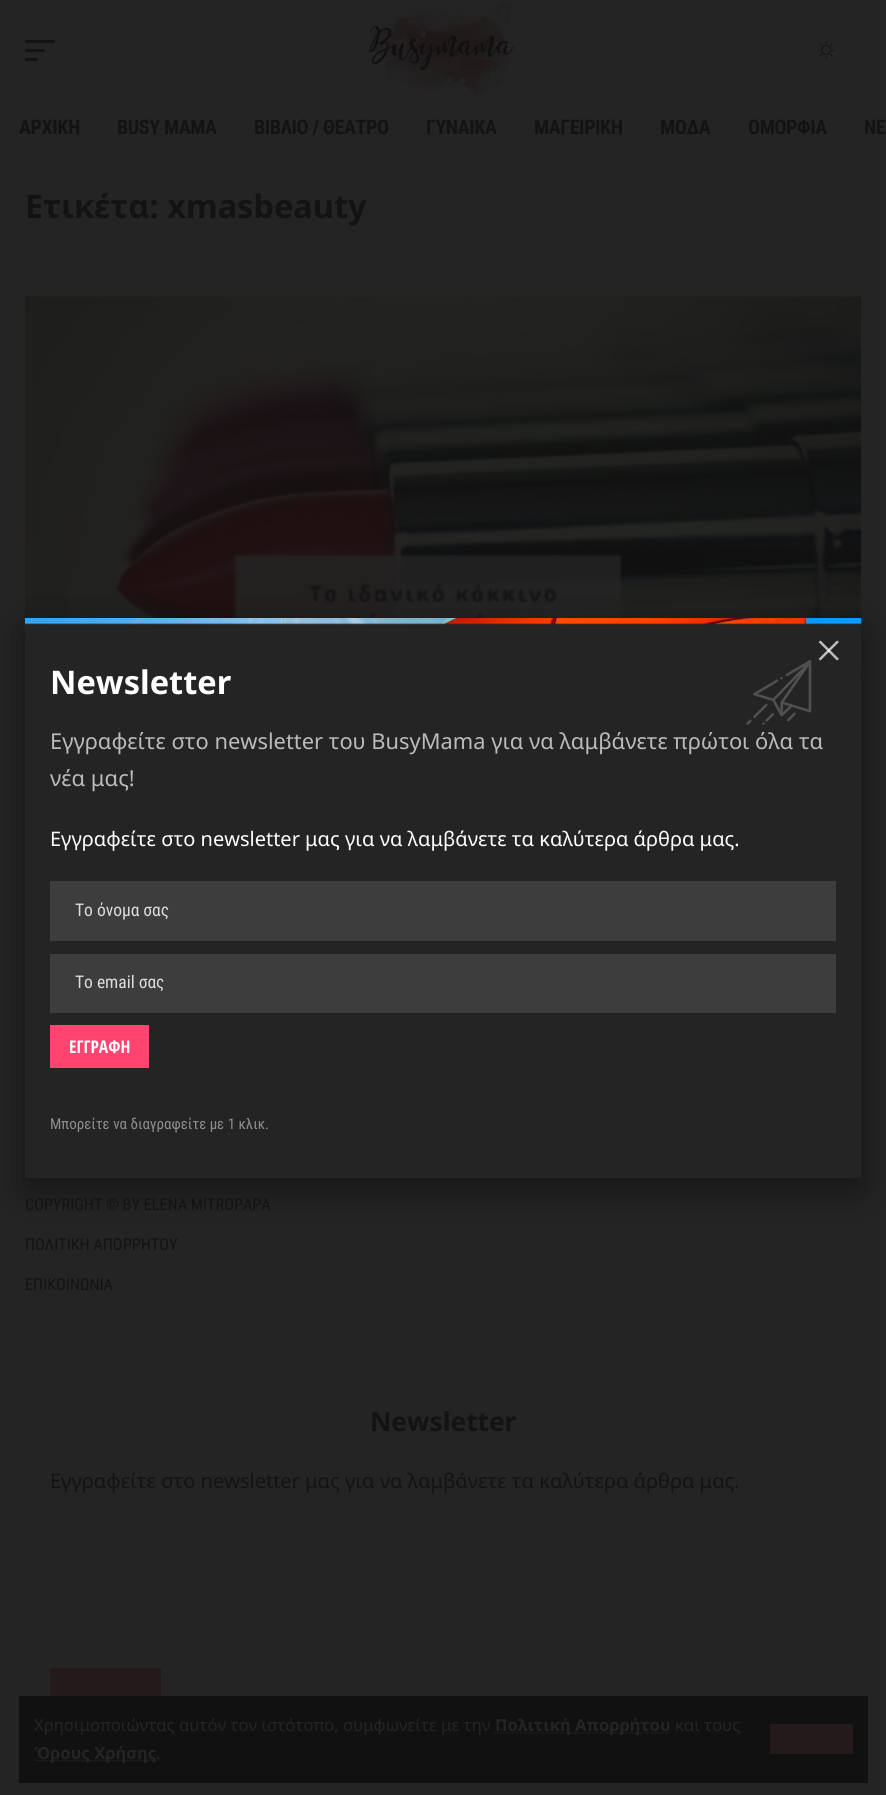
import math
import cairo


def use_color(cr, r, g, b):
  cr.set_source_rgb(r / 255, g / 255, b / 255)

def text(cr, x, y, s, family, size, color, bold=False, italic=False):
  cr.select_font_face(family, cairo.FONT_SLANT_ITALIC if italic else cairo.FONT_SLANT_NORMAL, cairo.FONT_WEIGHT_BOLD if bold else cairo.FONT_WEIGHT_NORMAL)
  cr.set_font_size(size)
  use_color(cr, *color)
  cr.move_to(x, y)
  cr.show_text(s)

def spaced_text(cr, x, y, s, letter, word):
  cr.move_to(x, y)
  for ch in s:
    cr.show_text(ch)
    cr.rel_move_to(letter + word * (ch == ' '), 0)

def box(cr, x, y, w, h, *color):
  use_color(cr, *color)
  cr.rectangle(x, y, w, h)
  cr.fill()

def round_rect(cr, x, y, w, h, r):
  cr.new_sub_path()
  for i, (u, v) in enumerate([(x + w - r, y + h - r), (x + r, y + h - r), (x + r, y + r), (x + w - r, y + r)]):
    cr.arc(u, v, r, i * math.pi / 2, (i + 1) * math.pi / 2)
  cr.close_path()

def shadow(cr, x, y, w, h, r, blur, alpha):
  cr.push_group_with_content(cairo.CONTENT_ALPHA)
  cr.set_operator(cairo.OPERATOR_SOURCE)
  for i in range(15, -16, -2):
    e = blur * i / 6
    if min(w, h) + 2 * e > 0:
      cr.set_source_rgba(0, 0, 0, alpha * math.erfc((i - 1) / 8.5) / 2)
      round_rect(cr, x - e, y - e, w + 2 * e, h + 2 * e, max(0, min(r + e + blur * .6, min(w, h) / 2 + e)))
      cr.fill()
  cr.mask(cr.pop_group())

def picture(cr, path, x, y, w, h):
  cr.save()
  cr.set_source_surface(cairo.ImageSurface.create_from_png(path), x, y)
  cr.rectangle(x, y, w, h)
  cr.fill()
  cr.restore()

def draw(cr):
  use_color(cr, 36, 36, 36)
  cr.paint()
  use_color(cr, 19, 19, 19)
  round_rect(cr, 25, 40, 30, 3, 1.5)
  cr.fill()
  round_rect(cr, 25, 49, 20, 3, 1.5)
  cr.fill()
  round_rect(cr, 25, 58, 13, 3, 1.5)
  cr.fill()
  picture(cr, "img_01.png", 369, 2, 146, 95)
  picture(cr, "img_02.png", 818, 41, 17, 18)
  box(cr, 19, 1696, 849, 87, 17, 17, 17)
  cr.new_path()
  cr.move_to(495, 1733)
  cr.line_to(670.5, 1733)
  use_color(cr, 36, 36, 36)
  cr.set_line_width(1.2)
  cr.set_dash([1.25, 1.25])
  cr.stroke()
  cr.new_path()
  cr.move_to(34, 1760.5)
  cr.line_to(156, 1760.5)
  cr.stroke()
  box(cr, 770, 1724, 83, 30, 36, 26, 28)
  cr.new_path()
  cr.move_to(9.4, 163.1)
  cr.line_to(872.1, 163.1)
  use_color(cr, 33, 33, 33)
  cr.set_line_width(2.5)
  cr.set_line_cap(cairo.LINE_CAP_ROUND)
  cr.set_dash([0, 18.75])
  cr.stroke()
  cr.new_path()
  cr.move_to(9.4, 181.9)
  cr.line_to(872.1, 181.9)
  cr.stroke()
  cr.new_path()
  cr.move_to(9.4, 238.1)
  cr.line_to(872.1, 238.1)
  cr.stroke()
  cr.new_path()
  cr.move_to(9.4, 256.9)
  cr.line_to(872.1, 256.9)
  cr.stroke()
  picture(cr, "img_03.png", 25, 296, 837, 501)
  box(cr, 50, 1668, 111, 28, 36, 26, 28)
  use_color(cr, 0, 0, 0)
  shadow(cr, 25, 630, 836, 560, 0, 19, 0.4)
  box(cr, 25, 624, 836, 554, 36, 36, 36)
  use_color(cr, 189, 189, 189)
  cr.new_path()
  cr.move_to(820.5, 640.5)
  cr.line_to(839, 659)
  cr.line_to(837, 660.5)
  cr.line_to(818.5, 642)
  cr.close_path()
  cr.fill()
  cr.set_source_rgba(1, 1, 1, 0.7)
  cr.new_path()
  cr.move_to(818.5, 659)
  cr.line_to(837, 640.5)
  cr.line_to(839, 642)
  cr.line_to(820.5, 660.5)
  cr.close_path()
  cr.fill()
  cr.set_source_rgba(0.533, 0.533, 0.533, 0.09)
  cr.rectangle(25, 623, 836, 1)
  cr.fill()
  picture(cr, "img_04.png", 25, 618, 837, 7)
  picture(cr, "img_05.png", 746, 660, 66, 65)
  box(cr, 50, 881, 786, 60, 61, 61, 61)
  box(cr, 50, 954, 786, 59, 61, 61, 61)
  box(cr, 50, 1025, 99, 43, 255, 68, 112)
  cr.select_font_face("Roboto Condensed", cairo.FONT_SLANT_NORMAL, cairo.FONT_WEIGHT_BOLD)
  cr.set_font_size(20)
  use_color(cr, 19, 19, 19)
  spaced_text(cr, 19, 134, "ΑΡΧΙΚΗ", -0.4, 0)
  spaced_text(cr, 117, 134, "BUSY MAMA", -0.4, 0)
  spaced_text(cr, 254, 134, "ΒΙΒΛΙΟ / ΘΕΑΤΡΟ", -0.4, 0)
  spaced_text(cr, 426, 134, "ΓΥΝΑΙΚΑ", -0.4, 0)
  spaced_text(cr, 534, 134, "ΜΑΓΕΙΡΙΚΗ", -0.4, 0)
  spaced_text(cr, 660, 134, "ΜΟΔΑ", -0.4, 0)
  spaced_text(cr, 748, 134, "ΟΜΟΡΦΙΑ", -0.4, 0)
  spaced_text(cr, 864, 134, "ΝΕ", -0.4, 0)
  text(cr, 34, 1731, "Χρησιμοποιώντας αυτόν τον ιστότοπο, συμφωνείτε με την", "Noto Sans", 16.6, (36, 36, 36))
  text(cr, 495, 1731, "Πολιτική Απορρήτου", "Noto Sans", 16.6, (36, 36, 36), bold=True)
  text(cr, 675, 1731, "και τους", "Noto Sans", 16.6, (36, 36, 36))
  text(cr, 34, 1759, "Όρους Χρήσης", "Noto Sans", 16.6, (36, 36, 36), bold=True)
  text(cr, 156, 1759, ".", "Noto Sans", 16.6, (36, 36, 36))
  text(cr, 25, 218, "Ετικέτα: xmasbeauty", "Noto Sans", 32.5, (19, 19, 19), bold=True)
  text(cr, 25, 1210, "COPYRIGHT © BY ELENA MITROPAPA", "Roboto Condensed", 16.25, (19, 19, 19))
  text(cr, 25, 1250, "ΠΟΛΙΤΙΚΗ ΑΠΟΡΡΗΤΟΥ", "Roboto Condensed", 16.25, (19, 19, 19))
  text(cr, 25, 1290, "ΕΠΙΚΟΙΝΩΝΙΑ", "Roboto Condensed", 16.25, (19, 19, 19))
  text(cr, 370, 1431, "Newsletter", "Noto Sans", 26.25, (19, 19, 19), bold=True)
  text(cr, 50, 1488, "Εγγραφείτε στο newsletter μας για να λαμβάνετε τα καλύτερα άρθρα μας.", "Noto Sans", 20, (19, 19, 19))
  text(cr, 50, 694, "Newsletter", "Noto Sans", 32.5, (255, 255, 255), bold=True)
  text(cr, 50, 749, "Εγγραφείτε στο newsletter του BusyMama για να λαμβάνετε πρώτοι όλα τα", "Noto Sans", 21.85, (187, 187, 187))
  text(cr, 50, 786, "νέα μας!", "Noto Sans", 21.85, (187, 187, 187))
  text(cr, 50, 846, "Εγγραφείτε στο newsletter μας για να λαμβάνετε τα καλύτερα άρθρα μας.", "Noto Sans", 20, (255, 255, 255))
  text(cr, 75, 916, "Το όνομα σας", "Roboto Condensed", 17.5, (221, 221, 221))
  text(cr, 75, 988, "Το email σας", "Roboto Condensed", 17.5, (221, 221, 221))
  text(cr, 69, 1053, "ΕΓΓΡΑΦΗ", "Open Sans Condensed", 17.5, (255, 255, 255), bold=True)
  text(cr, 50, 1129, "Μπορείτε να διαγραφείτε με 1 κλικ.", "Roboto Condensed", 15, (142, 142, 142))


surface = cairo.ImageSurface(cairo.FORMAT_RGB24, 886, 1795)
cr = cairo.Context(surface)
options = cairo.FontOptions()
options.set_hint_metrics(cairo.HINT_METRICS_OFF)
options.set_hint_style(cairo.HINT_STYLE_NONE)
cr.set_font_options(options)
cr.set_miter_limit(4)
draw(cr)
surface.write_to_png("out.png")
